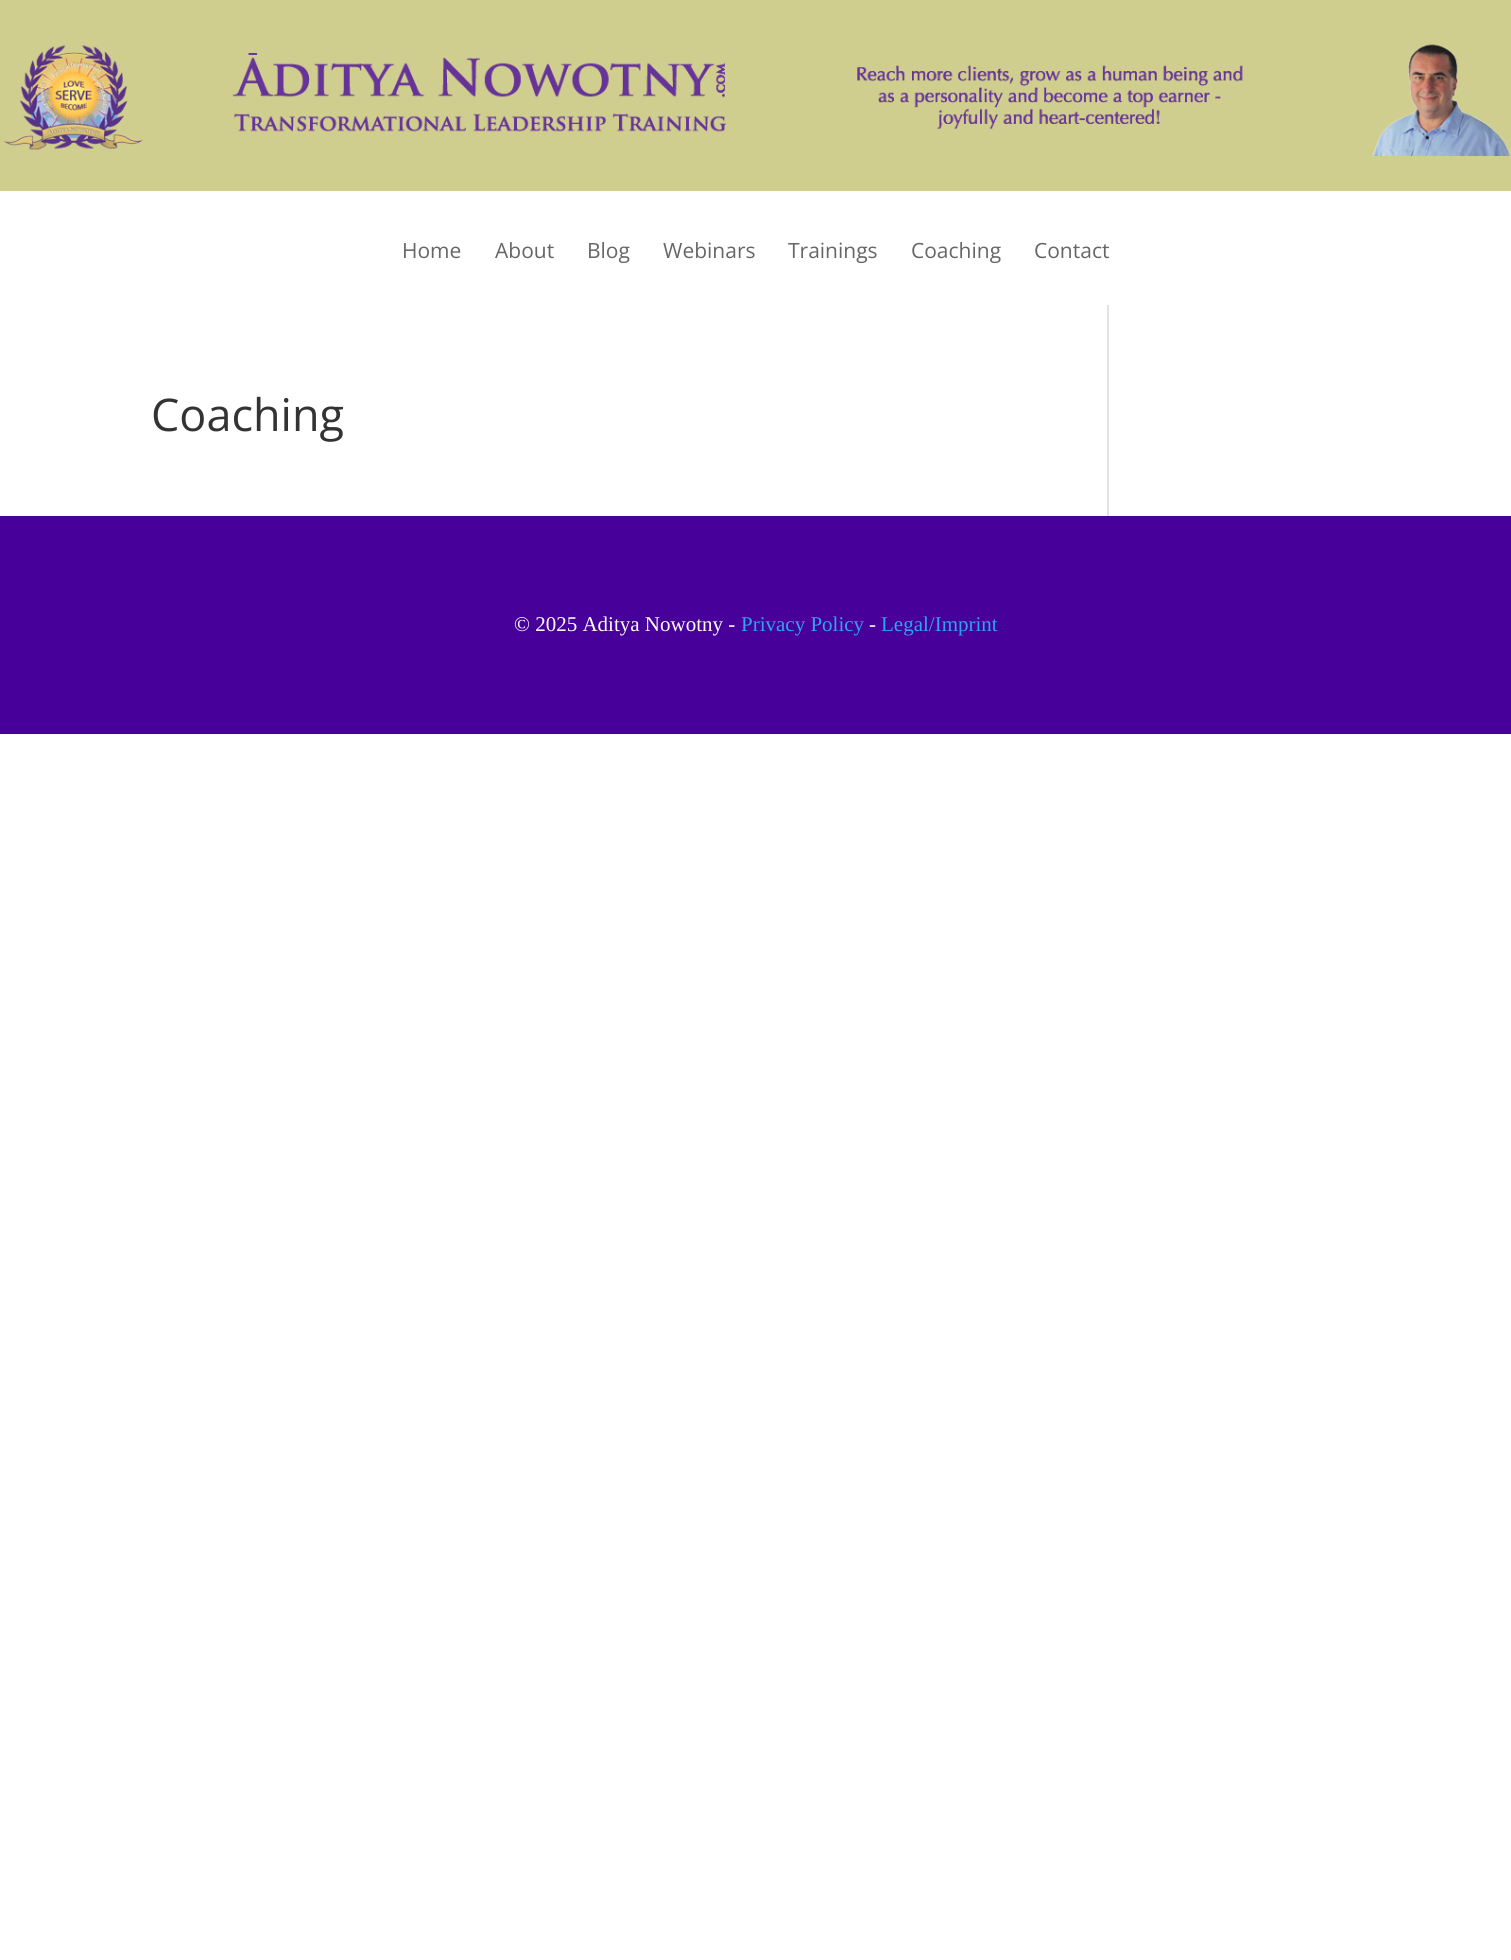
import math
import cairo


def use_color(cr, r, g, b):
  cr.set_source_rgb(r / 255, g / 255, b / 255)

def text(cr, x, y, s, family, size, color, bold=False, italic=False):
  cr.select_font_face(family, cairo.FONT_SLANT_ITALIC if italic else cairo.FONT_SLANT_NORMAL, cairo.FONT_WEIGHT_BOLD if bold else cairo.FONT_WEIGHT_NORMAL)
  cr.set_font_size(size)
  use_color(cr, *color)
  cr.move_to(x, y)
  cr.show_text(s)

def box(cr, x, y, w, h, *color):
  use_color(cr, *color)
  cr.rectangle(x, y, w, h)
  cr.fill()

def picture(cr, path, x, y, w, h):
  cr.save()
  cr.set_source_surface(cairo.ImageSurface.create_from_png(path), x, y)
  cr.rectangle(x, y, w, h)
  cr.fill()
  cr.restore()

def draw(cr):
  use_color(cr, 255, 255, 255)
  cr.paint()
  box(cr, 0, 0, 1511, 191, 208, 206, 142)
  picture(cr, "img_01.png", 3, 44, 1508, 112)
  box(cr, 1107, 305, 2, 211, 226, 226, 226)
  box(cr, 0, 516, 1511, 218, 71, 0, 153)
  text(cr, 402, 258, "Home", "Open Sans", 21, (102, 102, 102))
  text(cr, 495, 258, "About", "Open Sans", 21, (102, 102, 102))
  text(cr, 587, 258, "Blog", "Open Sans", 21, (102, 102, 102))
  text(cr, 663, 258, "Webinars", "Open Sans", 21, (102, 102, 102))
  text(cr, 788, 258, "Trainings", "Open Sans", 21, (102, 102, 102))
  text(cr, 911, 258, "Coaching", "Open Sans", 21, (102, 102, 102))
  text(cr, 1034, 258, "Contact", "Open Sans", 21, (102, 102, 102))
  text(cr, 151, 431, "Coaching", "Open Sans", 45, (51, 51, 51))
  text(cr, 514, 631, "© 2025 Aditya Nowotny -", "Liberation Serif", 21, (255, 255, 255))
  text(cr, 741, 631, "Privacy Policy", "Liberation Serif", 21, (46, 163, 242))
  text(cr, 869, 631, "-", "Liberation Serif", 21, (255, 255, 255))
  text(cr, 881, 631, "Legal/Imprint", "Liberation Serif", 21, (46, 163, 242))


surface = cairo.ImageSurface(cairo.FORMAT_RGB24, 1511, 1960)
cr = cairo.Context(surface)
options = cairo.FontOptions()
options.set_hint_metrics(cairo.HINT_METRICS_OFF)
options.set_hint_style(cairo.HINT_STYLE_NONE)
cr.set_font_options(options)
cr.set_miter_limit(4)
draw(cr)
surface.write_to_png("out.png")
